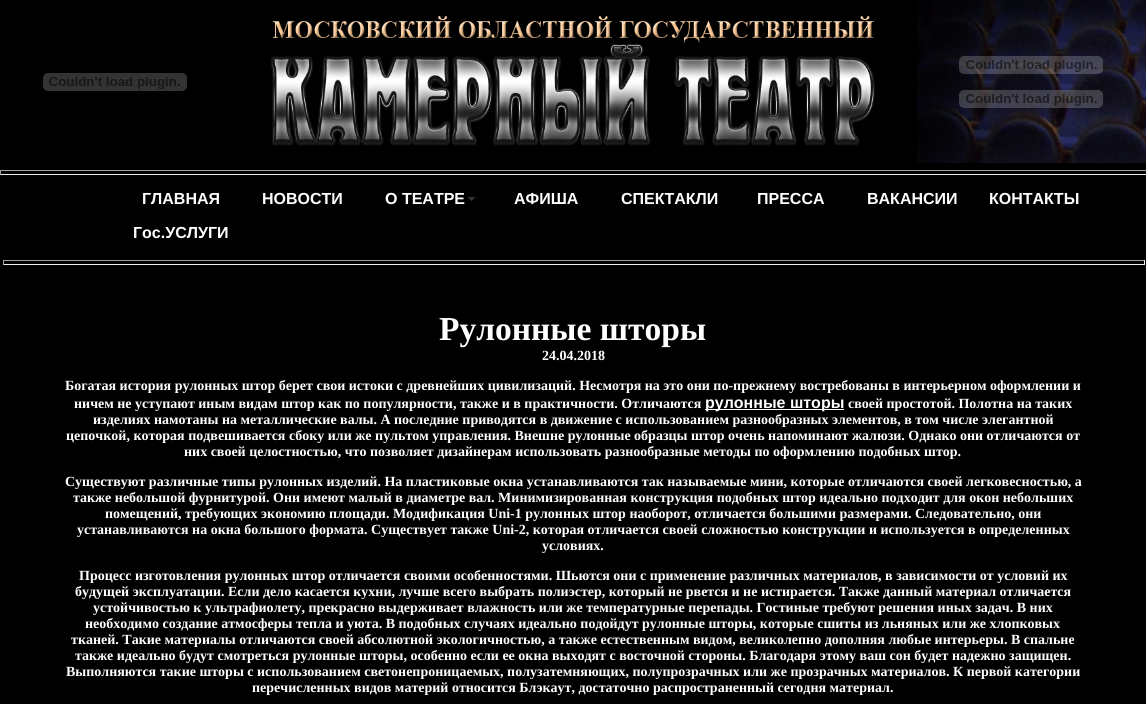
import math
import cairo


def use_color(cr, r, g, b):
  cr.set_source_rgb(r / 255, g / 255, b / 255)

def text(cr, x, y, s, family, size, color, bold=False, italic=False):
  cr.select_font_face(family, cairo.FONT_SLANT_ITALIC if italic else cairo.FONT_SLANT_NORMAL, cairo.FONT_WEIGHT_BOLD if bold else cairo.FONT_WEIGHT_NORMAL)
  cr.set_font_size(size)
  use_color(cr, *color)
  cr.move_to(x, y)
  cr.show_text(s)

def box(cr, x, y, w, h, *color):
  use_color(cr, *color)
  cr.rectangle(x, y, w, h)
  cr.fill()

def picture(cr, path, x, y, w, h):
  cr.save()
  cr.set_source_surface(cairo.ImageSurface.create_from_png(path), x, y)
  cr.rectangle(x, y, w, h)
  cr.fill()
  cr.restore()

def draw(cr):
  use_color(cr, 0, 0, 0)
  cr.paint()
  picture(cr, "img_01.png", 43, 73, 144, 18)
  picture(cr, "img_02.png", 270, 16, 605, 130)
  picture(cr, "img_03.png", 917, 0, 229, 163)
  picture(cr, "img_04.png", 959, 56, 144, 18)
  picture(cr, "img_05.png", 959, 90, 144, 18)
  box(cr, 0, 170, 1146, 1, 159, 159, 159)
  box(cr, 0, 174, 1146, 1, 238, 238, 238)
  box(cr, 0, 170, 1, 5, 159, 159, 159)
  picture(cr, "img_06.png", 468, 197, 7, 4)
  box(cr, 3, 260, 1142, 1, 159, 159, 159)
  box(cr, 1144, 260, 1, 5, 238, 238, 238)
  box(cr, 3, 264, 1142, 1, 238, 238, 238)
  box(cr, 3, 260, 1, 5, 159, 159, 159)
  box(cr, 705, 409, 139, 1, 255, 255, 255)
  text(cr, 142, 204, "ГЛАВНАЯ", "Liberation Sans", 16, (255, 255, 255), bold=True)
  text(cr, 262, 204, "НОВОСТИ", "Liberation Sans", 16, (255, 255, 255), bold=True)
  text(cr, 385, 204, "О ТЕАТРЕ", "Liberation Sans", 16, (255, 255, 255), bold=True)
  text(cr, 514, 204, "АФИША", "Liberation Sans", 16, (255, 255, 255), bold=True)
  text(cr, 621, 204, "СПЕКТАКЛИ", "Liberation Sans", 16, (255, 255, 255), bold=True)
  text(cr, 757, 204, "ПРЕССА", "Liberation Sans", 16, (255, 255, 255), bold=True)
  text(cr, 867, 204, "ВАКАНСИИ", "Liberation Sans", 16, (255, 255, 255), bold=True)
  text(cr, 989, 204, "КОНТАКТЫ", "Liberation Sans", 16, (255, 255, 255), bold=True)
  text(cr, 133, 238, "Гос.УСЛУГИ", "Liberation Sans", 16, (255, 255, 255), bold=True)
  text(cr, 439, 340, "Рулонные шторы", "Liberation Serif", 33.5, (255, 255, 255), bold=True)
  text(cr, 542, 360, "24.04.2018", "Liberation Serif", 14, (255, 255, 255), bold=True)
  text(cr, 65, 390, "Богатая история рулонных штор берет свои истоки с древнейших цивилизаций. Несмотря на это они по-прежнему востребованы в интерьерном оформлении и", "Liberation Serif", 14, (255, 255, 255), bold=True)
  text(cr, 74, 408, "ничем не уступают иным видам штор как по популярности, также и в практичности. Отличаются", "Liberation Serif", 14, (255, 255, 255), bold=True)
  text(cr, 705, 408, "рулонные шторы", "Liberation Sans", 16, (255, 255, 255), bold=True)
  text(cr, 848, 408, "своей простотой. Полотна на таких", "Liberation Serif", 14, (255, 255, 255), bold=True)
  text(cr, 93, 424, "изделиях намотаны на металлические валы. А последние приводятся в движение с использованием разнообразных элементов, в том числе элегантной", "Liberation Serif", 14, (255, 255, 255), bold=True)
  text(cr, 66, 440, "цепочкой, которая подвешивается сбоку или же пультом управления. Внешне рулонные образцы штор очень напоминают жалюзи. Однако они отличаются от", "Liberation Serif", 14, (255, 255, 255), bold=True)
  text(cr, 184, 456, "них своей целостностью, что позволяет дизайнерам использовать разнообразные методы по оформлению подобных штор.", "Liberation Serif", 14, (255, 255, 255), bold=True)
  text(cr, 65, 486, "Существуют различные типы рулонных изделий. На пластиковые окна устанавливаются так называемые мини, которые отличаются своей легковесностью, а", "Liberation Serif", 14, (255, 255, 255), bold=True)
  text(cr, 73, 502, "также небольшой фурнитурой. Они имеют малый в диаметре вал. Минимизированная конструкция подобных штор идеально подходит для окон небольших", "Liberation Serif", 14, (255, 255, 255), bold=True)
  text(cr, 105, 518, "помещений, требующих экономию площади. Модификация Uni-1 рулонных штор наоборот, отличается большими размерами. Следовательно, они", "Liberation Serif", 14, (255, 255, 255), bold=True)
  text(cr, 77, 534, "устанавливаются на окна большого формата. Существует также Uni-2, которая отличается своей сложностью конструкции и используется в определенных", "Liberation Serif", 14, (255, 255, 255), bold=True)
  text(cr, 542, 550, "условиях.", "Liberation Serif", 14, (255, 255, 255), bold=True)
  text(cr, 79, 580, "Процесс изготовления рулонных штор отличается своими особенностями. Шьются они с применение различных материалов, в зависимости от условий их", "Liberation Serif", 14, (255, 255, 255), bold=True)
  text(cr, 75, 596, "будущей эксплуатации. Если дело касается кухни, лучше всего выбрать полиэстер, который не рвется и не истирается. Также данный материал отличается", "Liberation Serif", 14, (255, 255, 255), bold=True)
  text(cr, 93, 612, "устойчивостью к ультрафиолету, прекрасно выдерживает влажность или же температурные перепады. Гостиные требуют решения иных задач. В них", "Liberation Serif", 14, (255, 255, 255), bold=True)
  text(cr, 85, 628, "необходимо создание атмосферы тепла и уюта. В подобных случаях идеально подойдут рулонные шторы, которые сшиты из льняных или же хлопковых", "Liberation Serif", 14, (255, 255, 255), bold=True)
  text(cr, 71, 644, "тканей. Такие материалы отличаются своей абсолютной экологичностью, а также естественным видом, великолепно дополняя любые интерьеры. В спальне", "Liberation Serif", 14, (255, 255, 255), bold=True)
  text(cr, 75, 660, "также идеально будут смотреться рулонные шторы, особенно если ее окна выходят с восточной стороны. Благодаря этому ваш сон будет надежно защищен.", "Liberation Serif", 14, (255, 255, 255), bold=True)
  text(cr, 66, 676, "Выполняются такие шторы с использованием светонепроницаемых, полузатемняющих, полупрозрачных или же прозрачных материалов. К первой категории", "Liberation Serif", 14, (255, 255, 255), bold=True)
  text(cr, 252, 692, "перечисленных видов материй относится Блэкаут, достаточно распространенный сегодня материал.", "Liberation Serif", 14, (255, 255, 255), bold=True)


surface = cairo.ImageSurface(cairo.FORMAT_RGB24, 1146, 704)
cr = cairo.Context(surface)
options = cairo.FontOptions()
options.set_hint_metrics(cairo.HINT_METRICS_OFF)
options.set_hint_style(cairo.HINT_STYLE_NONE)
cr.set_font_options(options)
cr.set_miter_limit(4)
draw(cr)
surface.write_to_png("out.png")
